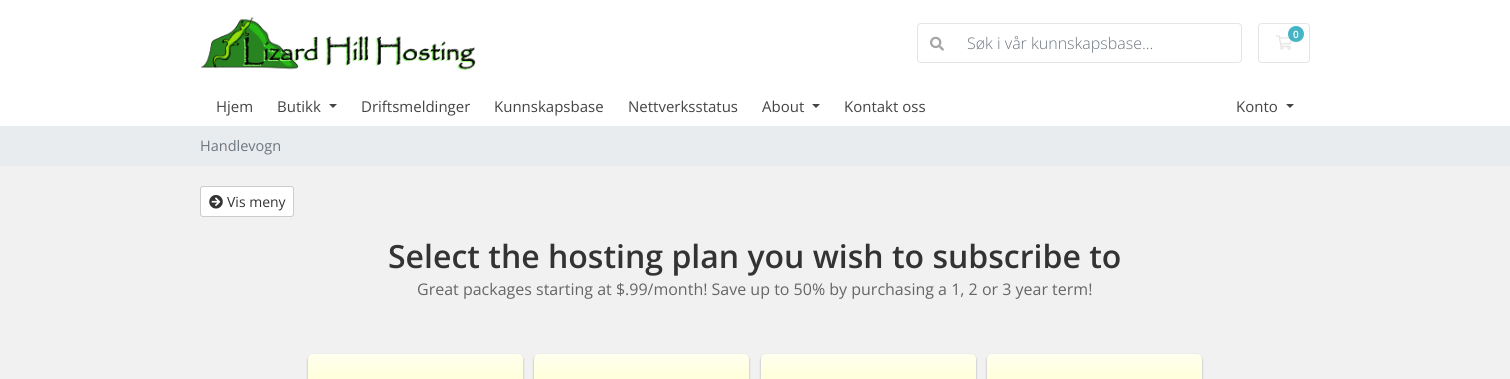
import math
import cairo


def use_color(cr, r, g, b):
  cr.set_source_rgb(r / 255, g / 255, b / 255)

def text(cr, x, y, s, family, size, color, bold=False, italic=False):
  cr.select_font_face(family, cairo.FONT_SLANT_ITALIC if italic else cairo.FONT_SLANT_NORMAL, cairo.FONT_WEIGHT_BOLD if bold else cairo.FONT_WEIGHT_NORMAL)
  cr.set_font_size(size)
  use_color(cr, *color)
  cr.move_to(x, y)
  cr.show_text(s)

def box(cr, x, y, w, h, *color):
  use_color(cr, *color)
  cr.rectangle(x, y, w, h)
  cr.fill()

def round_rect(cr, x, y, w, h, r):
  cr.new_sub_path()
  for i, (u, v) in enumerate([(x + w - r, y + h - r), (x + r, y + h - r), (x + r, y + r), (x + w - r, y + r)]):
    cr.arc(u, v, r, i * math.pi / 2, (i + 1) * math.pi / 2)
  cr.close_path()

def shadow(cr, x, y, w, h, r, blur, alpha):
  cr.push_group_with_content(cairo.CONTENT_ALPHA)
  cr.set_operator(cairo.OPERATOR_SOURCE)
  for i in range(15, -16, -2):
    e = blur * i / 6
    if min(w, h) + 2 * e > 0:
      cr.set_source_rgba(0, 0, 0, alpha * math.erfc((i - 1) / 8.5) / 2)
      round_rect(cr, x - e, y - e, w + 2 * e, h + 2 * e, max(0, min(r + e + blur * .6, min(w, h) / 2 + e)))
      cr.fill()
  cr.mask(cr.pop_group())

def picture(cr, path, x, y, w, h):
  cr.save()
  cr.set_source_surface(cairo.ImageSurface.create_from_png(path), x, y)
  cr.rectangle(x, y, w, h)
  cr.fill()
  cr.restore()

def draw(cr):
  use_color(cr, 241, 241, 241)
  cr.paint()
  box(cr, 0, 0, 1510, 126, 255, 255, 255)
  picture(cr, "img_01.png", 201, 17, 275, 54)
  round_rect(cr, 1258.5, 23.5, 51, 39, 3.5)
  use_color(cr, 229, 229, 229)
  cr.set_line_width(1)
  cr.stroke()
  picture(cr, "img_02.png", 1276, 35, 16, 15)
  cr.set_source_rgba(0.09, 0.635, 0.722, 0.8)
  cr.arc(1296, 34, 8, 0, 2 * math.pi)
  cr.fill()
  round_rect(cr, 917.5, 23.5, 324, 39, 3.5)
  use_color(cr, 229, 229, 229)
  cr.stroke()
  picture(cr, "img_03.png", 930, 36, 14, 15)
  use_color(cr, 68, 68, 68)
  cr.new_path()
  cr.move_to(329, 104)
  cr.line_to(337, 104)
  cr.line_to(333, 108)
  cr.close_path()
  cr.fill()
  cr.new_path()
  cr.move_to(812, 104)
  cr.line_to(820, 104)
  cr.line_to(816, 108)
  cr.close_path()
  cr.fill()
  cr.new_path()
  cr.move_to(1286, 104)
  cr.line_to(1294, 104)
  cr.line_to(1290, 108)
  cr.close_path()
  cr.fill()
  box(cr, 0, 126, 1510, 40, 233, 236, 239)
  use_color(cr, 255, 255, 255)
  round_rect(cr, 200.5, 186.5, 93, 30, 2.5)
  cr.fill_preserve()
  use_color(cr, 204, 204, 204)
  cr.stroke()
  picture(cr, "img_04.png", 209, 195, 14, 14)
  use_color(cr, 0, 0, 0)
  shadow(cr, 308, 355, 215, 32, 5, 1, 0.3)
  gradient = cairo.LinearGradient(416, 354, 416, 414)
  gradient.add_color_stop_rgba(0, 1, 1, 0.937, 1)
  gradient.add_color_stop_rgba(1, 0.996, 0.996, 0.745, 1)
  cr.set_source(gradient)
  cr.new_path()
  cr.move_to(313, 354)
  cr.line_to(518, 354)
  cr.curve_to(521, 354, 523, 356, 523, 359)
  cr.line_to(523, 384)
  cr.line_to(308, 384)
  cr.line_to(308, 359)
  cr.curve_to(308, 356, 310, 354, 313, 354)
  cr.close_path()
  cr.fill()
  use_color(cr, 0, 0, 0)
  shadow(cr, 534, 355, 215, 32, 5, 1, 0.3)
  gradient = cairo.LinearGradient(642, 354, 642, 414)
  gradient.add_color_stop_rgba(0, 1, 1, 0.937, 1)
  gradient.add_color_stop_rgba(1, 0.996, 0.996, 0.745, 1)
  cr.set_source(gradient)
  cr.new_path()
  cr.move_to(539, 354)
  cr.line_to(744, 354)
  cr.curve_to(747, 354, 749, 356, 749, 359)
  cr.line_to(749, 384)
  cr.line_to(534, 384)
  cr.line_to(534, 359)
  cr.curve_to(534, 356, 536, 354, 539, 354)
  cr.close_path()
  cr.fill()
  use_color(cr, 0, 0, 0)
  shadow(cr, 761, 355, 215, 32, 5, 1, 0.3)
  gradient = cairo.LinearGradient(869, 354, 869, 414)
  gradient.add_color_stop_rgba(0, 1, 1, 0.937, 1)
  gradient.add_color_stop_rgba(1, 0.996, 0.996, 0.745, 1)
  cr.set_source(gradient)
  cr.new_path()
  cr.move_to(766, 354)
  cr.line_to(971, 354)
  cr.curve_to(974, 354, 976, 356, 976, 359)
  cr.line_to(976, 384)
  cr.line_to(761, 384)
  cr.line_to(761, 359)
  cr.curve_to(761, 356, 763, 354, 766, 354)
  cr.close_path()
  cr.fill()
  use_color(cr, 0, 0, 0)
  shadow(cr, 987, 355, 215, 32, 5, 1, 0.3)
  gradient = cairo.LinearGradient(1095, 354, 1095, 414)
  gradient.add_color_stop_rgba(0, 1, 1, 0.937, 1)
  gradient.add_color_stop_rgba(1, 0.996, 0.996, 0.745, 1)
  cr.set_source(gradient)
  cr.new_path()
  cr.move_to(992, 354)
  cr.line_to(1197, 354)
  cr.curve_to(1200, 354, 1202, 356, 1202, 359)
  cr.line_to(1202, 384)
  cr.line_to(987, 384)
  cr.line_to(987, 359)
  cr.curve_to(987, 356, 989, 354, 992, 354)
  cr.close_path()
  cr.fill()
  text(cr, 1293, 38, "0", "Open Sans SemiBold", 10, (255, 255, 255))
  text(cr, 967, 49, "Søk i vår kunnskapsbase...", "Open Sans Light", 16, (108, 117, 125))
  text(cr, 216, 112, "Hjem", "Open Sans", 15, (68, 68, 68))
  text(cr, 277, 112, "Butikk", "Open Sans", 15, (68, 68, 68))
  text(cr, 361, 112, "Driftsmeldinger", "Open Sans", 15, (68, 68, 68))
  text(cr, 494, 112, "Kunnskapsbase", "Open Sans", 15, (68, 68, 68))
  text(cr, 628, 112, "Nettverksstatus", "Open Sans", 15, (68, 68, 68))
  text(cr, 762, 112, "About", "Open Sans", 15, (68, 68, 68))
  text(cr, 844, 112, "Kontakt oss", "Open Sans", 15, (68, 68, 68))
  text(cr, 1236, 112, "Konto", "Open Sans", 15, (68, 68, 68))
  text(cr, 200, 151, "Handlevogn", "Open Sans", 14.5, (108, 117, 125))
  text(cr, 227, 207, "Vis meny", "Open Sans", 14, (51, 51, 51))
  text(cr, 388, 268, "Select the hosting plan you wish to subscribe to", "Open Sans SemiBold", 32, (51, 51, 51))
  text(cr, 417, 295, "Great packages starting at $.99/month! Save up to 50% by purchasing a 1, 2 or 3 year term!", "Open Sans", 16, (102, 102, 102))


surface = cairo.ImageSurface(cairo.FORMAT_RGB24, 1510, 379)
cr = cairo.Context(surface)
options = cairo.FontOptions()
options.set_hint_metrics(cairo.HINT_METRICS_OFF)
options.set_hint_style(cairo.HINT_STYLE_NONE)
cr.set_font_options(options)
cr.set_miter_limit(4)
draw(cr)
surface.write_to_png("out.png")
